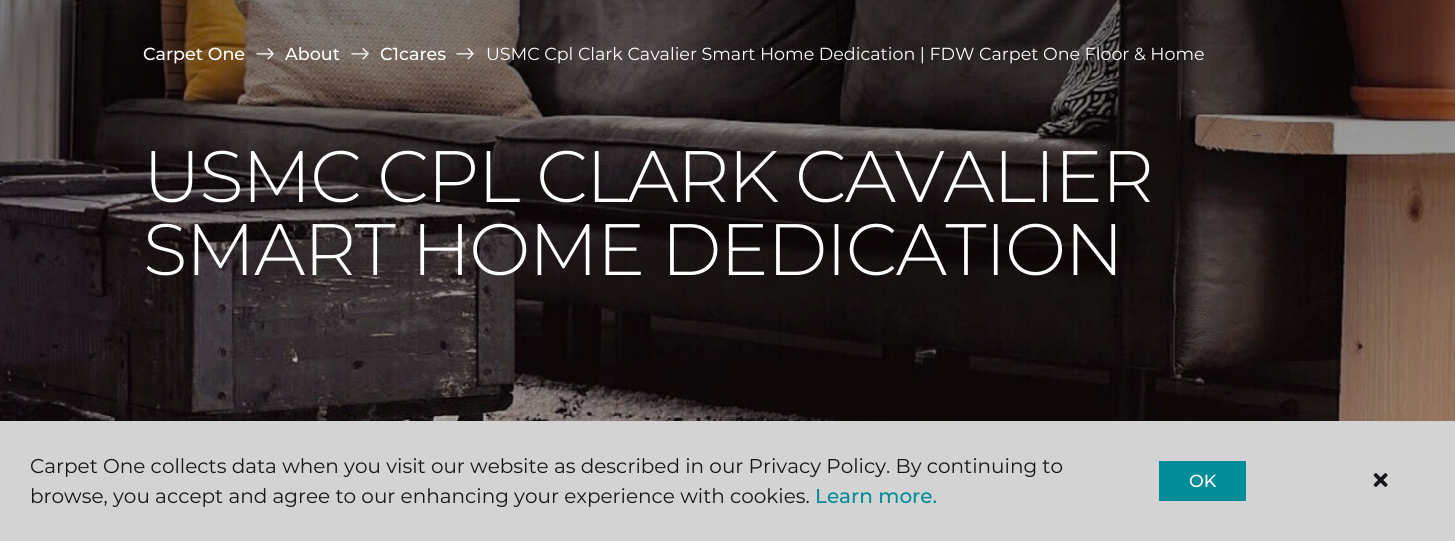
import math
import cairo


def use_color(cr, r, g, b):
  cr.set_source_rgb(r / 255, g / 255, b / 255)

def text(cr, x, y, s, family, size, color, bold=False, italic=False):
  cr.select_font_face(family, cairo.FONT_SLANT_ITALIC if italic else cairo.FONT_SLANT_NORMAL, cairo.FONT_WEIGHT_BOLD if bold else cairo.FONT_WEIGHT_NORMAL)
  cr.set_font_size(size)
  use_color(cr, *color)
  cr.move_to(x, y)
  cr.show_text(s)

def spaced_text(cr, x, y, s, letter, word):
  cr.move_to(x, y)
  for ch in s:
    cr.show_text(ch)
    cr.rel_move_to(letter + word * (ch == ' '), 0)

def box(cr, x, y, w, h, *color):
  use_color(cr, *color)
  cr.rectangle(x, y, w, h)
  cr.fill()

def picture(cr, path, x, y, w, h):
  cr.save()
  cr.set_source_surface(cairo.ImageSurface.create_from_png(path), x, y)
  cr.rectangle(x, y, w, h)
  cr.fill()
  cr.restore()

def draw(cr):
  use_color(cr, 255, 255, 255)
  cr.paint()
  picture(cr, "img_01.png", 0, 0, 1455, 421)
  picture(cr, "img_02.png", 256, 48, 18, 12)
  picture(cr, "img_03.png", 351, 48, 18, 12)
  picture(cr, "img_04.png", 456, 48, 18, 12)
  box(cr, 0, 421, 1455, 120, 211, 211, 212)
  box(cr, 1159, 461, 87, 40, 0, 140, 153)
  picture(cr, "img_05.png", 1373, 473, 15, 14)
  text(cr, 143, 60, "Carpet One", "Montserrat Medium", 17.5, (255, 255, 255))
  text(cr, 285, 60, "About", "Montserrat Medium", 17.5, (255, 255, 255))
  text(cr, 380, 60, "C1cares", "Montserrat Medium", 17.5, (255, 255, 255))
  text(cr, 486, 60, "USMC Cpl Clark Cavalier Smart Home Dedication | FDW Carpet One Floor & Home", "Montserrat", 17.5, (255, 255, 255))
  cr.select_font_face("Montserrat Light")
  cr.set_font_size(72.75)
  spaced_text(cr, 143, 202, "USMC CPL CLARK CAVALIER", -1.45, 0)
  spaced_text(cr, 143, 275, "SMART HOME DEDICATION", -1.45, 0)
  text(cr, 30, 473, "Carpet One collects data when you visit our website as described in our Privacy Policy. By continuing to", "Montserrat", 20, (20, 22, 25))
  text(cr, 30, 503, "browse, you accept and agree to our enhancing your experience with cookies.", "Montserrat", 20, (20, 22, 25))
  text(cr, 815, 503, "Learn more.", "Montserrat Medium", 20, (0, 140, 153))
  text(cr, 1189, 487, "OK", "Montserrat Medium", 17.5, (255, 255, 255))


surface = cairo.ImageSurface(cairo.FORMAT_RGB24, 1455, 541)
cr = cairo.Context(surface)
options = cairo.FontOptions()
options.set_hint_metrics(cairo.HINT_METRICS_OFF)
options.set_hint_style(cairo.HINT_STYLE_NONE)
cr.set_font_options(options)
cr.set_miter_limit(4)
draw(cr)
surface.write_to_png("out.png")
